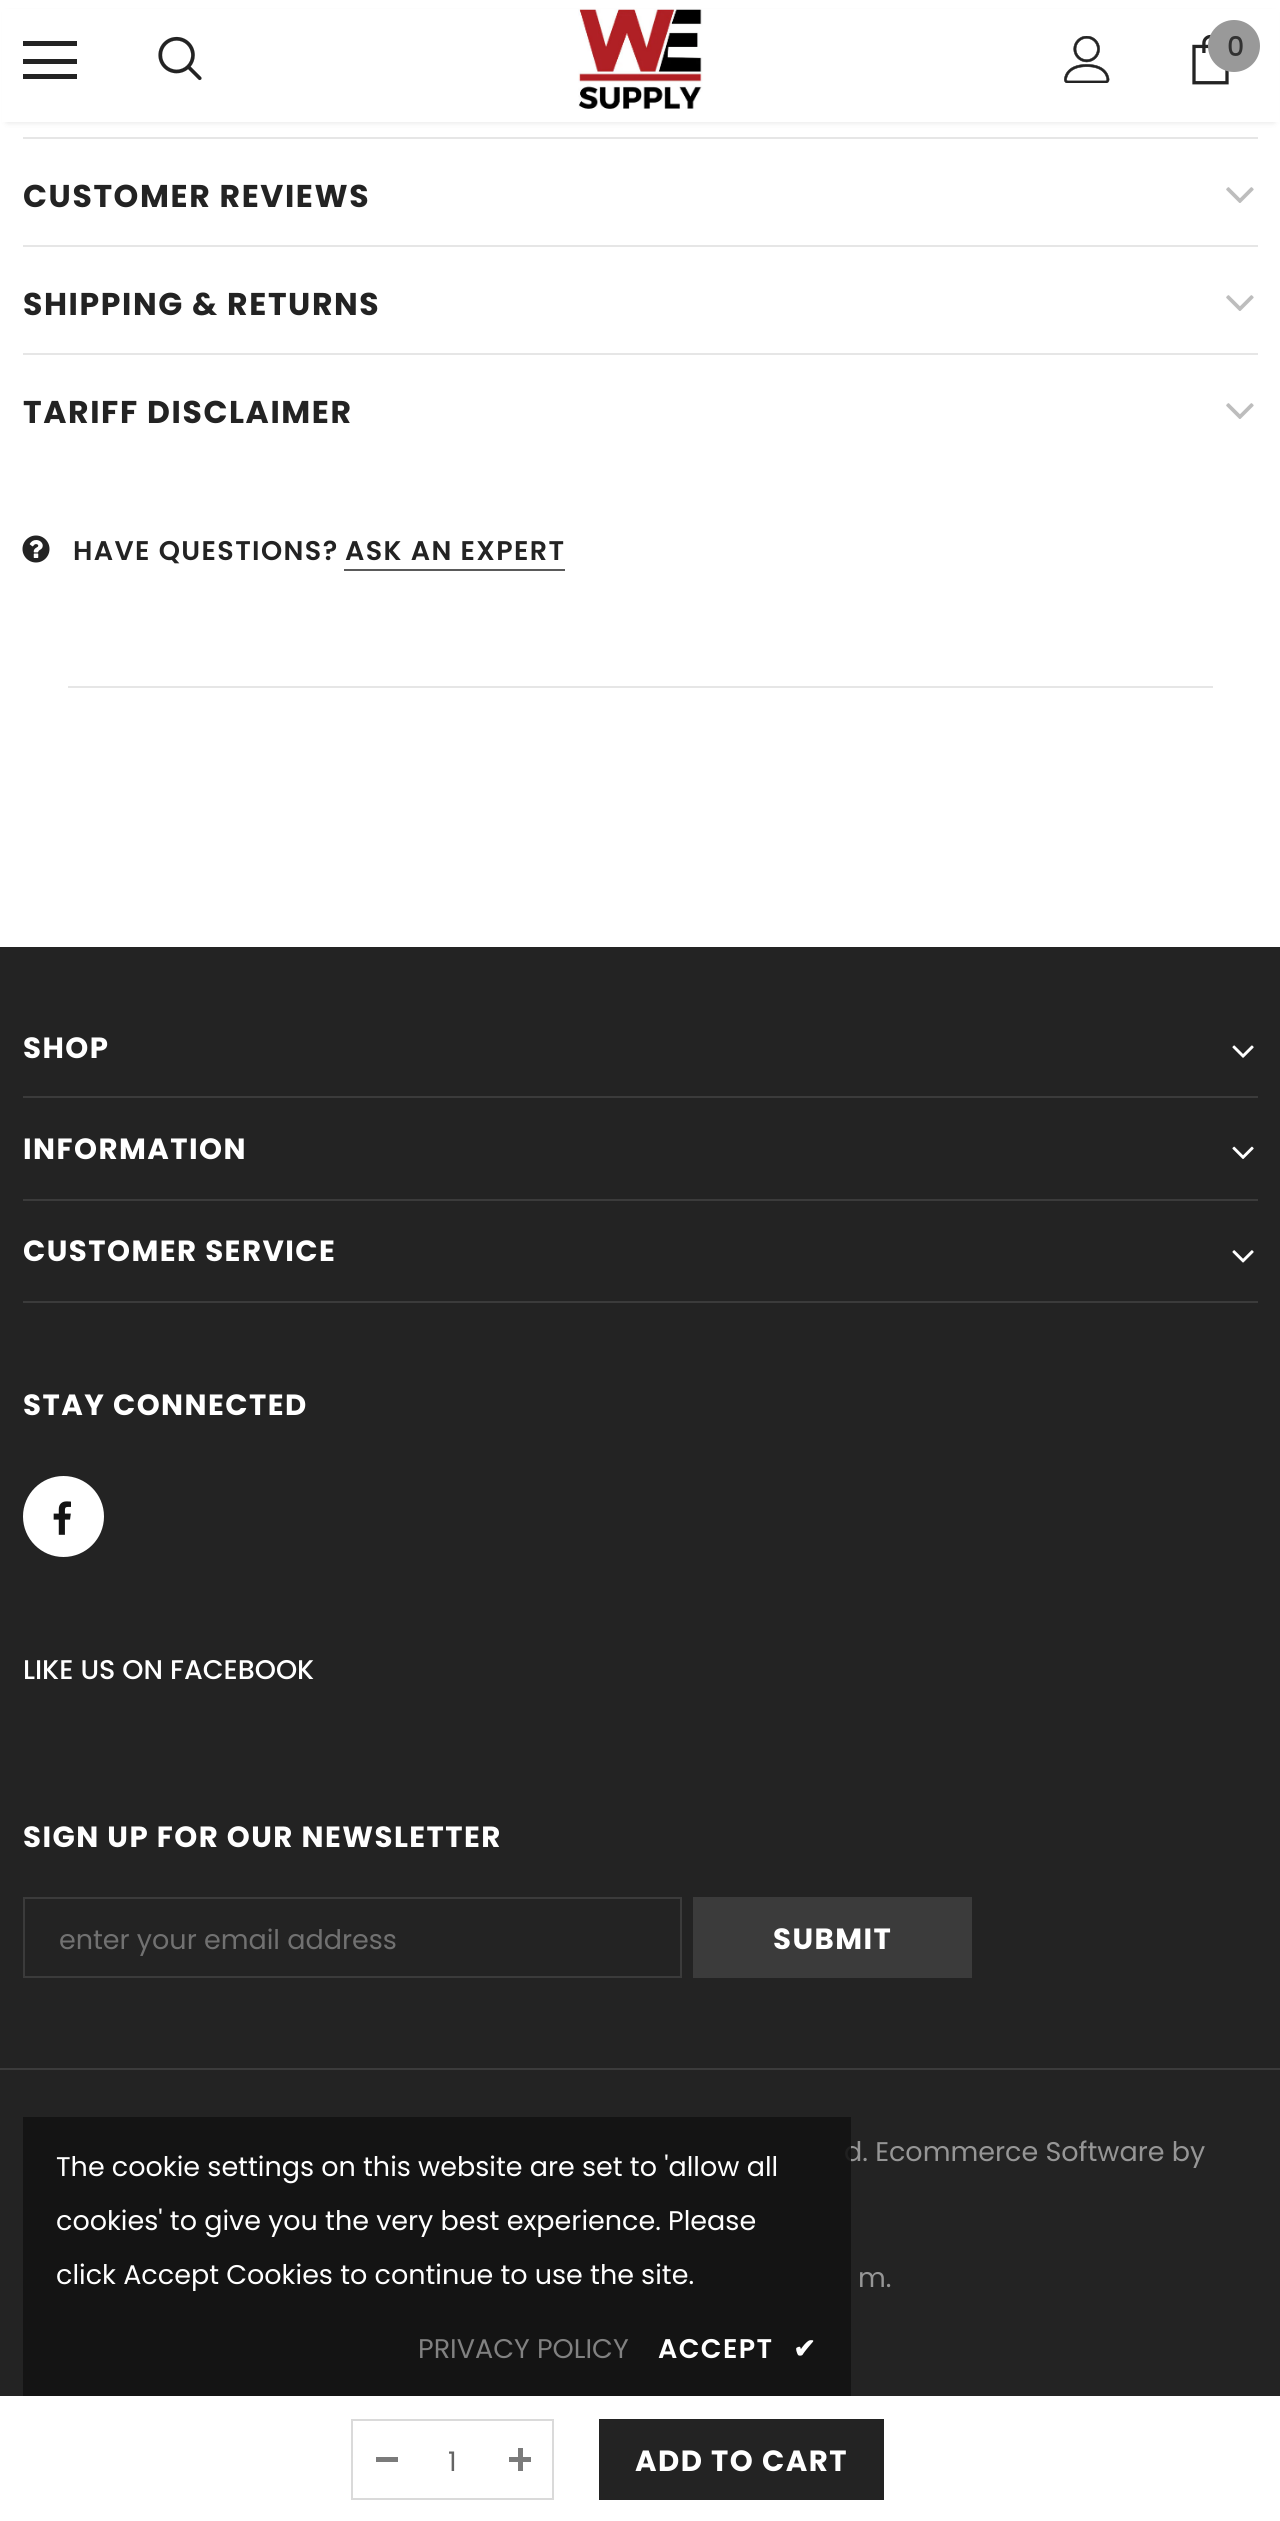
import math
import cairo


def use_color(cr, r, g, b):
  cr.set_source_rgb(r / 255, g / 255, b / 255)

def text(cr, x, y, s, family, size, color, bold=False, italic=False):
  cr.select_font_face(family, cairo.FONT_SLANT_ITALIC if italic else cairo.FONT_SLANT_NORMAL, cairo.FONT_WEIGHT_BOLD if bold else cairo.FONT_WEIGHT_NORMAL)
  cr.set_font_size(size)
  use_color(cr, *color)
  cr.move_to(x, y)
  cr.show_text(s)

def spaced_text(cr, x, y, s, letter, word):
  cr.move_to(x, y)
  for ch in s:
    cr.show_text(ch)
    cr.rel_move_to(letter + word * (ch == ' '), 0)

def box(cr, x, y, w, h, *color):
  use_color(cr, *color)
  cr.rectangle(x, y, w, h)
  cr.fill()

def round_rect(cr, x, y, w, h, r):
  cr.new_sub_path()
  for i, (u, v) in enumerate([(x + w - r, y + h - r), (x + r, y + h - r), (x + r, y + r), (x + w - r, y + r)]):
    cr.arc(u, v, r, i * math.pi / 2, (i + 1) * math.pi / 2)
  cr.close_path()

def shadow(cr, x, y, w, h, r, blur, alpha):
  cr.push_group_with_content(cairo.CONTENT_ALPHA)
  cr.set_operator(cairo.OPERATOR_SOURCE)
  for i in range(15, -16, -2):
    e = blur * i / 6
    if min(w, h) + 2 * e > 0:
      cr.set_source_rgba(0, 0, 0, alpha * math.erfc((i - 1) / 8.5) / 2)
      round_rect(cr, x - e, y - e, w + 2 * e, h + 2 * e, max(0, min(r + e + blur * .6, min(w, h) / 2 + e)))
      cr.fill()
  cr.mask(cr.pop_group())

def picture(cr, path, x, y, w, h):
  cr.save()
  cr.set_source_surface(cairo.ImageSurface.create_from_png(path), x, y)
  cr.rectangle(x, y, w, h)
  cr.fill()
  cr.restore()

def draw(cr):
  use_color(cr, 255, 255, 255)
  cr.paint()
  use_color(cr, 0, 0, 0)
  shadow(cr, 7, 14, 1267, 108, 0, 3.5, 0.12)
  box(cr, 2, 9, 1277, 113, 255, 255, 255)
  box(cr, 23, 41, 54, 5, 35, 35, 35)
  box(cr, 23, 59, 54, 5, 35, 35, 35)
  box(cr, 23, 74, 54, 5, 35, 35, 35)
  picture(cr, "img_01.png", 158, 36, 44, 45)
  picture(cr, "img_02.png", 578, 9, 125, 101)
  picture(cr, "img_03.png", 1064, 36, 46, 47)
  picture(cr, "img_04.png", 1192, 34, 37, 51)
  use_color(cr, 153, 153, 153)
  cr.arc(1234, 46, 26, 0, 2 * math.pi)
  cr.fill()
  box(cr, 23, 137, 1235, 2, 230, 230, 230)
  picture(cr, "img_05.png", 1226, 187, 28, 16)
  box(cr, 23, 245, 1235, 2, 230, 230, 230)
  picture(cr, "img_05.png", 1226, 295, 28, 16)
  box(cr, 23, 353, 1235, 2, 230, 230, 230)
  picture(cr, "img_05.png", 1226, 403, 28, 16)
  picture(cr, "img_06.png", 22, 535, 28, 28)
  box(cr, 344, 569, 221, 2, 90, 90, 90)
  box(cr, 68, 686, 1145, 2, 230, 230, 230)
  box(cr, 0, 947, 1280, 1449, 35, 35, 35)
  box(cr, 23, 1096, 1235, 2, 59, 59, 59)
  picture(cr, "img_07.png", 1232, 1045, 22, 13)
  box(cr, 23, 1199, 1235, 2, 59, 59, 59)
  picture(cr, "img_08.png", 1232, 1146, 22, 13)
  box(cr, 23, 1301, 1235, 2, 59, 59, 59)
  picture(cr, "img_09.png", 1232, 1250, 22, 13)
  use_color(cr, 255, 255, 255)
  cr.arc(63.5, 1516.5, 40.5, 0, 2 * math.pi)
  cr.fill()
  picture(cr, "img_10.png", 53, 1501, 18, 34)
  cr.rectangle(24, 1898, 657, 79)
  use_color(cr, 59, 59, 59)
  cr.stroke()
  box(cr, 693, 1897, 279, 81, 59, 59, 59)
  box(cr, 0, 2068, 1280, 2, 59, 59, 59)
  cr.rectangle(352, 2420, 201, 79)
  use_color(cr, 218, 218, 218)
  cr.stroke()
  box(cr, 376, 2457, 22, 5, 123, 123, 123)
  box(cr, 509, 2457, 22, 5, 123, 123, 123)
  box(cr, 518, 2448, 5, 23, 123, 123, 123)
  box(cr, 599, 2419, 285, 81, 35, 35, 35)
  text(cr, 1227, 56, "0", "Poppins Medium", 27, (50, 50, 50))
  cr.select_font_face("Poppins", cairo.FONT_SLANT_NORMAL, cairo.FONT_WEIGHT_BOLD)
  cr.set_font_size(31.5)
  use_color(cr, 35, 35, 35)
  spaced_text(cr, 23, 207, "CUSTOMER REVIEWS", 1.6, 0)
  spaced_text(cr, 23, 315, "SHIPPING & RETURNS", 1.6, 0)
  spaced_text(cr, 23, 423, "TARIFF DISCLAIMER", 1.6, 0)
  cr.select_font_face("Poppins SemiBold")
  cr.set_font_size(27)
  spaced_text(cr, 73, 560, "HAVE QUESTIONS?", 1.4, 0)
  spaced_text(cr, 345, 560, "ASK AN EXPERT", 1.4, 0)
  cr.select_font_face("Poppins", cairo.FONT_SLANT_NORMAL, cairo.FONT_WEIGHT_BOLD)
  cr.set_font_size(29.25)
  use_color(cr, 255, 255, 255)
  spaced_text(cr, 23, 1058, "SHOP", 1.45, 0)
  spaced_text(cr, 23, 1159, "INFORMATION", 1.45, 0)
  spaced_text(cr, 23, 1261, "CUSTOMER SERVICE", 1.45, 0)
  spaced_text(cr, 23, 1415, "STAY CONNECTED", 1.45, 0)
  text(cr, 23, 1679, "LIKE US ON FACEBOOK", "Poppins Medium", 27, (255, 255, 255))
  cr.select_font_face("Poppins", cairo.FONT_SLANT_NORMAL, cairo.FONT_WEIGHT_BOLD)
  cr.set_font_size(29.25)
  spaced_text(cr, 23, 1847, "SIGN UP FOR OUR NEWSLETTER", 1.45, 0)
  text(cr, 59, 1949, "enter your email address", "Poppins", 27, (113, 113, 113))
  cr.select_font_face("Poppins", cairo.FONT_SLANT_NORMAL, cairo.FONT_WEIGHT_BOLD)
  cr.set_font_size(29.25)
  use_color(cr, 255, 255, 255)
  spaced_text(cr, 773, 1949, "SUBMIT", 1.45, 0)
  text(cr, 844, 2161, "d. Ecommerce Software by", "Poppins", 27, (150, 150, 150))
  text(cr, 858, 2287, "m.", "Poppins", 27, (150, 150, 150))
  cr.set_source_rgba(0.078, 0.078, 0.078, 0.9)
  cr.rectangle(23, 2117, 828, 279)
  cr.fill()
  text(cr, 56, 2176, "The cookie settings on this website are set to 'allow all", "Poppins", 27, (255, 255, 255))
  text(cr, 56, 2230, "cookies' to give you the very best experience. Please", "Poppins", 27, (255, 255, 255))
  text(cr, 56, 2284, "click Accept Cookies to continue to use the site.", "Poppins", 27, (255, 255, 255))
  text(cr, 418, 2358, "PRIVACY POLICY", "Poppins", 27, (129, 129, 129))
  cr.select_font_face("Poppins SemiBold")
  use_color(cr, 255, 255, 255)
  spaced_text(cr, 658, 2358, "ACCEPT", 1.4, 0)
  cr.select_font_face("DejaVu Sans", cairo.FONT_SLANT_NORMAL, cairo.FONT_WEIGHT_BOLD)
  spaced_text(cr, 793, 2358, "✔", 1.4, 0)
  text(cr, 448, 2471, "1", "Poppins", 27, (100, 100, 100))
  cr.select_font_face("Poppins", cairo.FONT_SLANT_NORMAL, cairo.FONT_WEIGHT_BOLD)
  cr.set_font_size(29.25)
  use_color(cr, 255, 255, 255)
  spaced_text(cr, 635, 2471, "ADD TO CART", 1.45, 0)


surface = cairo.ImageSurface(cairo.FORMAT_RGB24, 1280, 2521)
cr = cairo.Context(surface)
options = cairo.FontOptions()
options.set_hint_metrics(cairo.HINT_METRICS_OFF)
options.set_hint_style(cairo.HINT_STYLE_NONE)
cr.set_font_options(options)
cr.set_miter_limit(4)
draw(cr)
surface.write_to_png("out.png")
